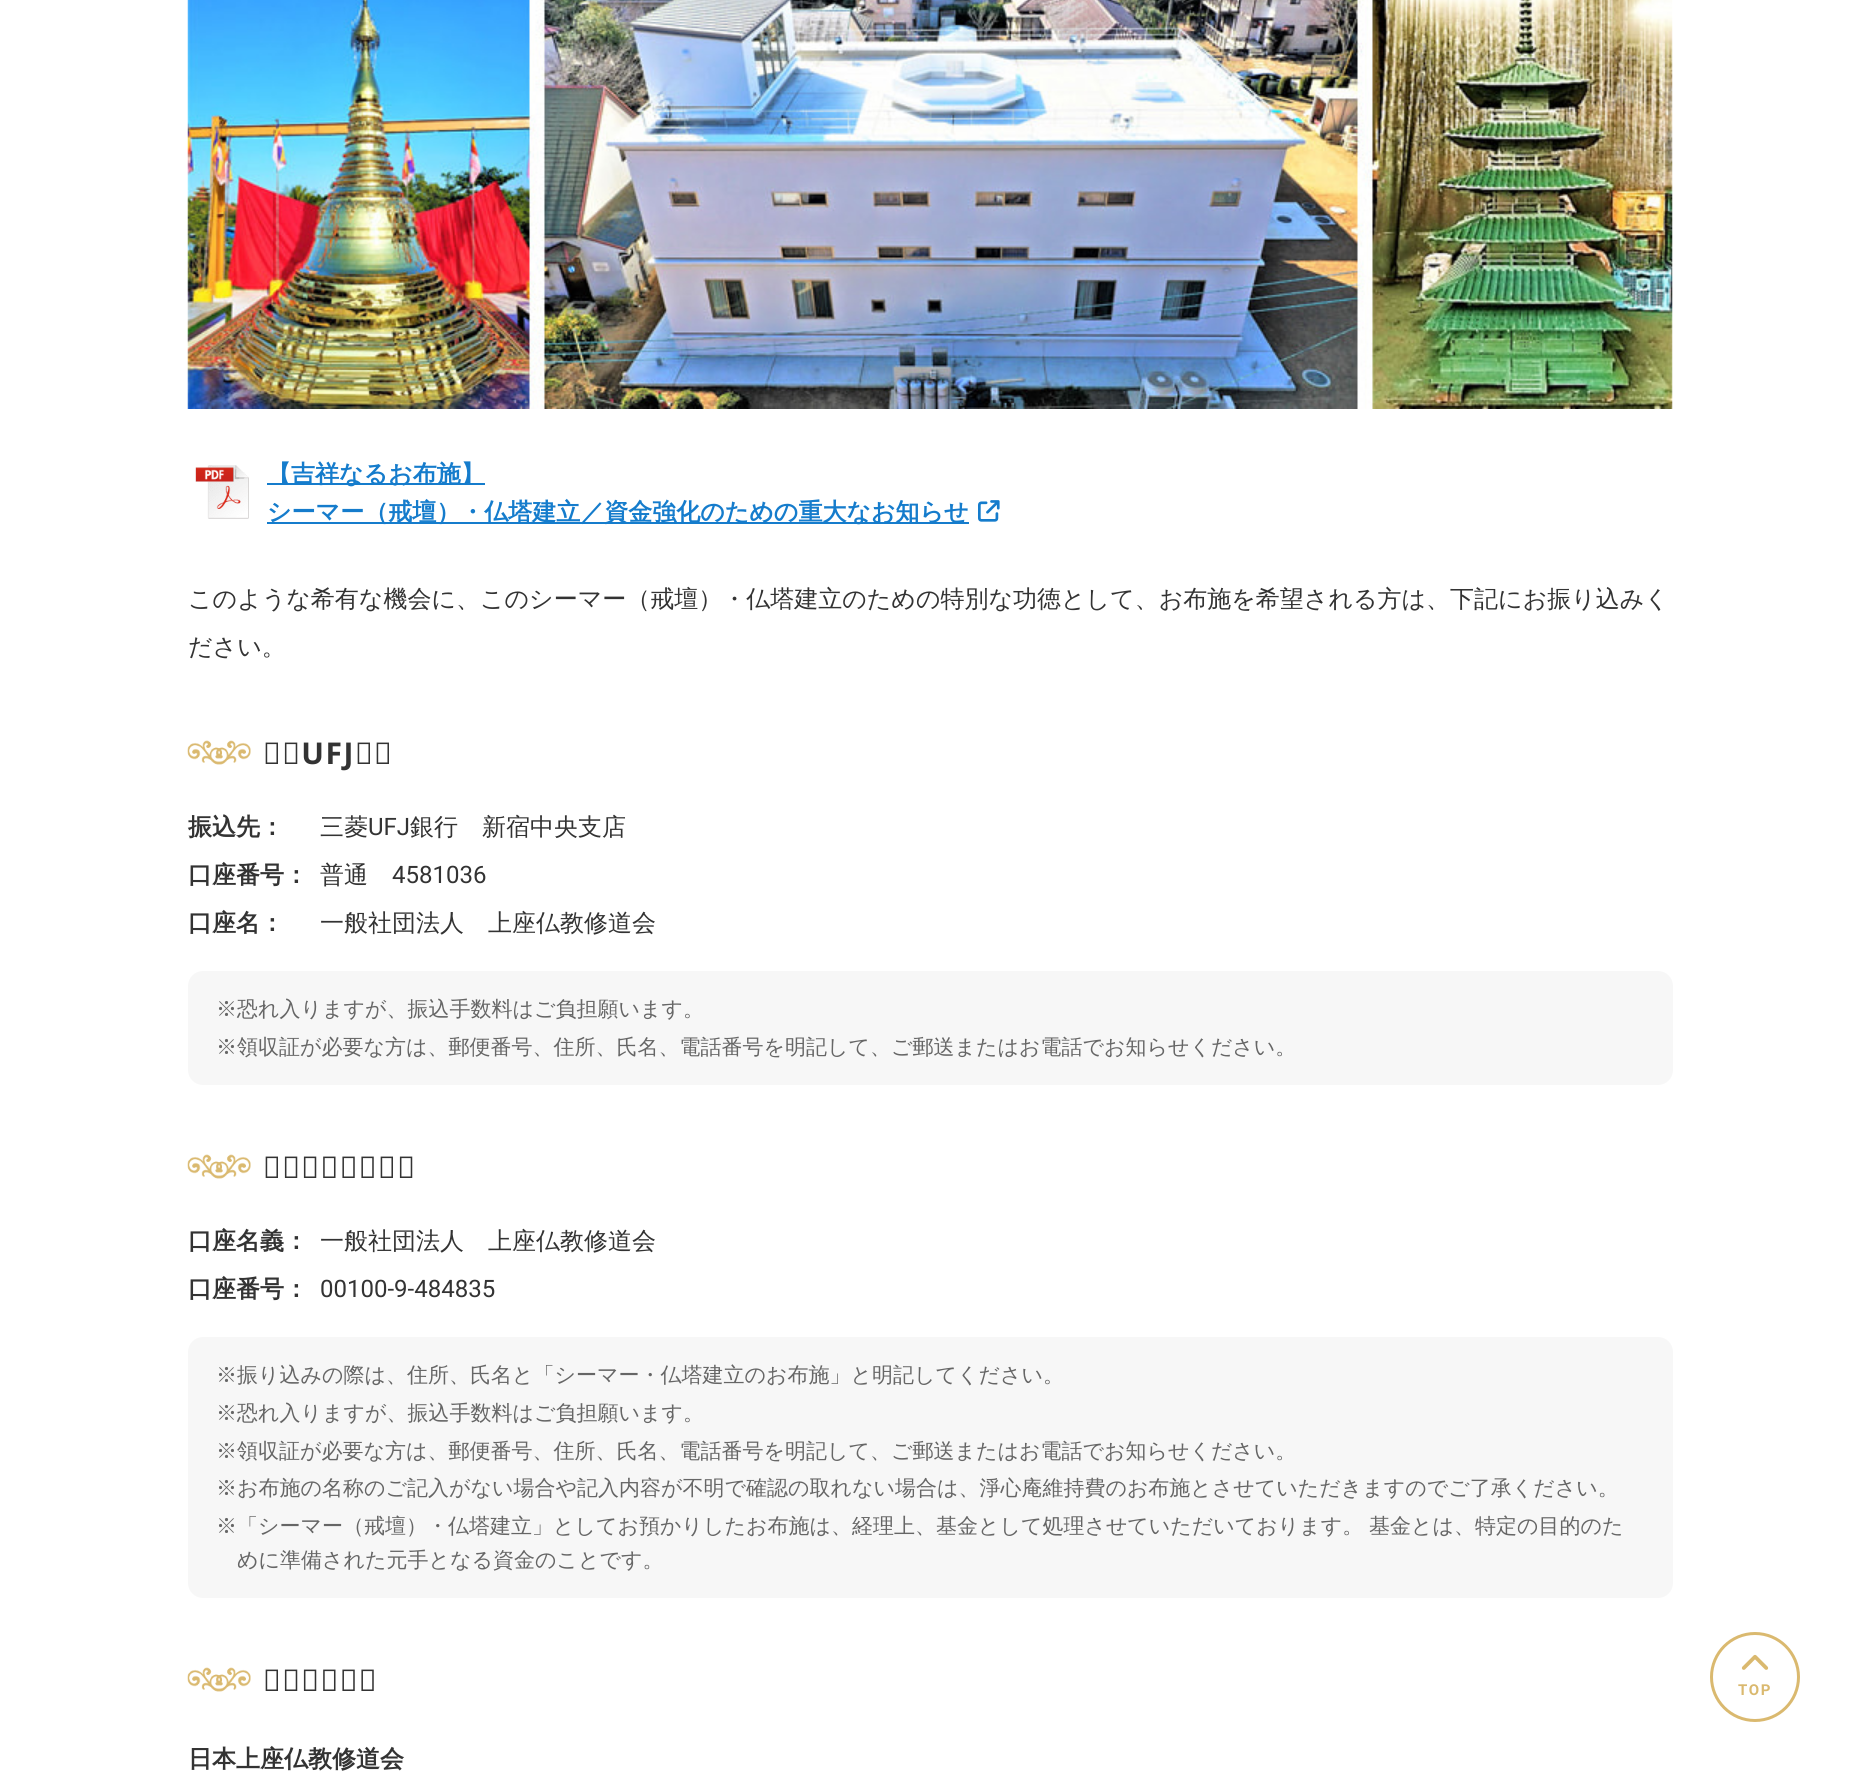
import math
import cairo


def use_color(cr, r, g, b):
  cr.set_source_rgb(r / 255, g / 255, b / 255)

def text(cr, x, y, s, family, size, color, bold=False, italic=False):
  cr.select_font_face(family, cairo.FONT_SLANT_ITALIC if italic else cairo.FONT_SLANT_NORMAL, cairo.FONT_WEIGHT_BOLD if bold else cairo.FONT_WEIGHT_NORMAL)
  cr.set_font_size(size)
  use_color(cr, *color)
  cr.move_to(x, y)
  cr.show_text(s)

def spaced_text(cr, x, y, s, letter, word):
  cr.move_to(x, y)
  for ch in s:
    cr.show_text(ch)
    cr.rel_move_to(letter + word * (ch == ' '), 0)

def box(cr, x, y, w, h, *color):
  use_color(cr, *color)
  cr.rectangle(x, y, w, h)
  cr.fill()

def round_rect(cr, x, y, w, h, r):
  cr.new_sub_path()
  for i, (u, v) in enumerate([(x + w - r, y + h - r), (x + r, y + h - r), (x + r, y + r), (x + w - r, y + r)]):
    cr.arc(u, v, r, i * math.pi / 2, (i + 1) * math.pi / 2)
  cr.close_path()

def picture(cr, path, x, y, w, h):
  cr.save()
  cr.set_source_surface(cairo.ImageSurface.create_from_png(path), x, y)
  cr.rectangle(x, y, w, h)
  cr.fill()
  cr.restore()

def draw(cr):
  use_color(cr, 255, 255, 255)
  cr.paint()
  picture(cr, "img_01.png", 187, 0, 1486, 409)
  picture(cr, "img_02.png", 195, 465, 54, 54)
  box(cr, 267, 483, 218, 2, 21, 124, 204)
  box(cr, 267, 522, 702, 2, 21, 124, 204)
  picture(cr, "img_03.png", 978, 500, 22, 22)
  picture(cr, "img_04.png", 187, 740, 64, 25)
  use_color(cr, 247, 247, 247)
  round_rect(cr, 188, 971, 1485, 114, 15)
  cr.fill()
  picture(cr, "img_04.png", 187, 1154, 64, 25)
  round_rect(cr, 188, 1337, 1485, 261, 15)
  cr.fill()
  picture(cr, "img_04.png", 187, 1667, 64, 25)
  cr.arc(1755, 1677, 43.5, 0, 2 * math.pi)
  use_color(cr, 218, 185, 111)
  cr.set_line_width(3)
  cr.stroke()
  picture(cr, "img_05.png", 1741, 1654, 28, 16)
  text(cr, 267, 482, "【吉祥なるお布施】", "WenQuanYi Zen Hei", 24, (21, 124, 204), bold=True)
  text(cr, 267, 520, "シーマー（戒壇）・仏塔建立／資金強化のための重大なお知らせ", "WenQuanYi Zen Hei", 24, (21, 124, 204), bold=True)
  text(cr, 188, 607, "このような希有な機会に、このシーマー（戒壇）・仏塔建立のための特別な功徳として、お布施を希望される方は、下記にお振り込みく", "WenQuanYi Zen Hei Medium", 24, (51, 51, 51))
  text(cr, 188, 655, "ださい。", "WenQuanYi Zen Hei Medium", 24, (51, 51, 51))
  cr.select_font_face("Noto Sans", cairo.FONT_SLANT_NORMAL, cairo.FONT_WEIGHT_BOLD)
  cr.set_font_size(30)
  spaced_text(cr, 263, 764, "三菱UFJ銀行", 1.5, 0)
  text(cr, 188, 835, "振込先：", "WenQuanYi Zen Hei", 24, (51, 51, 51), bold=True)
  text(cr, 320, 835, "三菱", "WenQuanYi Zen Hei Medium", 24, (51, 51, 51))
  text(cr, 368, 835, "UFJ", "Roboto", 24, (51, 51, 51))
  text(cr, 410, 835, "銀行　新宿中央支店", "WenQuanYi Zen Hei Medium", 24, (51, 51, 51))
  text(cr, 188, 883, "口座番号：", "WenQuanYi Zen Hei", 24, (51, 51, 51), bold=True)
  text(cr, 320, 883, "普通", "WenQuanYi Zen Hei Medium", 24, (51, 51, 51))
  text(cr, 392, 883, "4581036", "Roboto", 24, (51, 51, 51))
  text(cr, 188, 931, "口座名：", "WenQuanYi Zen Hei", 24, (51, 51, 51), bold=True)
  text(cr, 320, 931, "一般社団法人　上座仏教修道会", "WenQuanYi Zen Hei Medium", 24, (51, 51, 51))
  text(cr, 216, 1016, "※", "WenQuanYi Zen Hei Medium", 21, (102, 102, 102))
  text(cr, 237, 1016, "恐れ入りますが、振込手数料はご負担願います。", "WenQuanYi Zen Hei Medium", 21, (102, 102, 102))
  text(cr, 216, 1054, "※", "WenQuanYi Zen Hei Medium", 21, (102, 102, 102))
  text(cr, 237, 1054, "領収証が必要な方は、郵便番号、住所、氏名、電話番号を明記して、ご郵送またはお電話でお知らせください。", "WenQuanYi Zen Hei Medium", 21, (102, 102, 102))
  cr.select_font_face("Noto Sans", cairo.FONT_SLANT_NORMAL, cairo.FONT_WEIGHT_BOLD)
  cr.set_font_size(30)
  use_color(cr, 51, 51, 51)
  spaced_text(cr, 263, 1178, "ゆうちょ銀行口座", 1.5, 0)
  text(cr, 188, 1249, "口座名義：", "WenQuanYi Zen Hei", 24, (51, 51, 51), bold=True)
  text(cr, 320, 1249, "一般社団法人　上座仏教修道会", "WenQuanYi Zen Hei Medium", 24, (51, 51, 51))
  text(cr, 188, 1297, "口座番号：", "WenQuanYi Zen Hei", 24, (51, 51, 51), bold=True)
  text(cr, 320, 1297, "00100-9-484835", "Roboto", 24, (51, 51, 51))
  text(cr, 216, 1382, "※", "WenQuanYi Zen Hei Medium", 21, (102, 102, 102))
  text(cr, 237, 1382, "振り込みの際は、住所、氏名と「シーマー・仏塔建立のお布施」と明記してください。", "WenQuanYi Zen Hei Medium", 21, (102, 102, 102))
  text(cr, 216, 1420, "※", "WenQuanYi Zen Hei Medium", 21, (102, 102, 102))
  text(cr, 237, 1420, "恐れ入りますが、振込手数料はご負担願います。", "WenQuanYi Zen Hei Medium", 21, (102, 102, 102))
  text(cr, 216, 1458, "※", "WenQuanYi Zen Hei Medium", 21, (102, 102, 102))
  text(cr, 237, 1458, "領収証が必要な方は、郵便番号、住所、氏名、電話番号を明記して、ご郵送またはお電話でお知らせください。", "WenQuanYi Zen Hei Medium", 21, (102, 102, 102))
  text(cr, 216, 1495, "※", "WenQuanYi Zen Hei Medium", 21, (102, 102, 102))
  text(cr, 237, 1495, "お布施の名称のご記入がない場合や記入内容が不明で確認の取れない場合は、淨心庵維持費のお布施とさせていただきますのでご了承ください。", "WenQuanYi Zen Hei Medium", 21, (102, 102, 102))
  text(cr, 216, 1533, "※", "WenQuanYi Zen Hei Medium", 21, (102, 102, 102))
  text(cr, 237, 1533, "「シーマー（戒壇）・仏塔建立」としてお預かりしたお布施は、経理上、基金として処理させていただいております。", "WenQuanYi Zen Hei Medium", 21, (102, 102, 102))
  text(cr, 1369, 1533, "基金とは、特定の目的のた", "WenQuanYi Zen Hei Medium", 21, (102, 102, 102))
  text(cr, 237, 1567, "めに準備された元手となる資金のことです。", "WenQuanYi Zen Hei Medium", 21, (102, 102, 102))
  cr.select_font_face("Noto Sans", cairo.FONT_SLANT_NORMAL, cairo.FONT_WEIGHT_BOLD)
  cr.set_font_size(30)
  use_color(cr, 51, 51, 51)
  spaced_text(cr, 263, 1691, "問い合わせ先", 1.5, 0)
  text(cr, 188, 1767, "日本上座仏教修道会", "WenQuanYi Zen Hei", 24, (51, 51, 51), bold=True)
  cr.select_font_face("Roboto", cairo.FONT_SLANT_NORMAL, cairo.FONT_WEIGHT_BOLD)
  cr.set_font_size(15)
  use_color(cr, 218, 185, 111)
  spaced_text(cr, 1738, 1695, "TOP", 1.5, 0)


surface = cairo.ImageSurface(cairo.FORMAT_RGB24, 1860, 1781)
cr = cairo.Context(surface)
options = cairo.FontOptions()
options.set_hint_metrics(cairo.HINT_METRICS_OFF)
options.set_hint_style(cairo.HINT_STYLE_NONE)
cr.set_font_options(options)
cr.set_miter_limit(4)
draw(cr)
surface.write_to_png("out.png")
